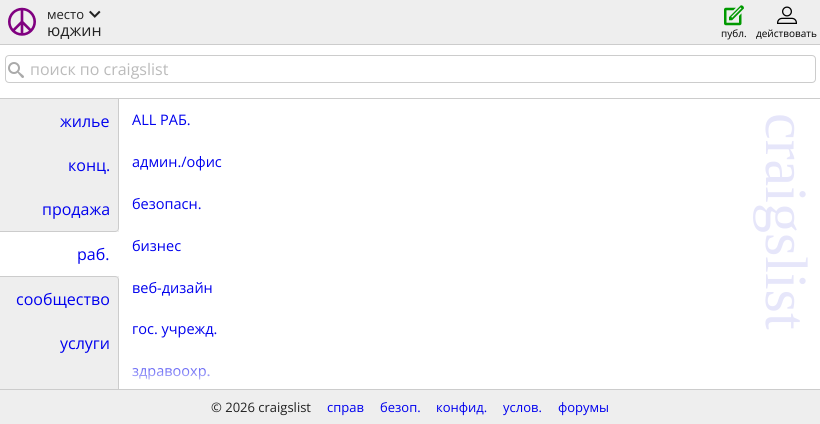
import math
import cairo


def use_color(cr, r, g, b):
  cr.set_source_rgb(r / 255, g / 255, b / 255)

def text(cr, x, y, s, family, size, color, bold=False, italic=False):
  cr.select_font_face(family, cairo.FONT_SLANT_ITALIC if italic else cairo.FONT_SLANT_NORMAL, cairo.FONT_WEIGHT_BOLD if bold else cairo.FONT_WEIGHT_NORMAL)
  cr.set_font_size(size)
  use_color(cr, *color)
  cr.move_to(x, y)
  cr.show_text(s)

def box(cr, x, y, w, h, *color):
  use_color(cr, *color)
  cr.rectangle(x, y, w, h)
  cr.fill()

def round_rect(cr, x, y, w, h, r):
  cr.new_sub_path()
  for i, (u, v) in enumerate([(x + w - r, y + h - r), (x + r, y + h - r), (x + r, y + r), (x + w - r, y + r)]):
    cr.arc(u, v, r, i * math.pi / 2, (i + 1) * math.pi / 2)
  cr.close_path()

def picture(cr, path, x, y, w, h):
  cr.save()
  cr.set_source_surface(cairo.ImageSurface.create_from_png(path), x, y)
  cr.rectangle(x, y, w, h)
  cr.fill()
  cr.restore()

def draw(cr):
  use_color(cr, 255, 255, 255)
  cr.paint()
  box(cr, 0, 0, 820, 44, 238, 238, 238)
  box(cr, 0, 44, 820, 1, 204, 204, 204)
  picture(cr, "img_01.png", 8, 7, 28, 29)
  picture(cr, "img_02.png", 89, 10, 12, 8)
  picture(cr, "img_03.png", 724, 5, 20, 21)
  picture(cr, "img_04.png", 777, 6, 20, 18)
  round_rect(cr, 5.5, 55.5, 810, 27, 3.5)
  cr.set_line_width(1)
  cr.stroke()
  picture(cr, "img_05.png", 8, 62, 16, 16)
  box(cr, 0, 98, 820, 1, 204, 204, 204)
  box(cr, 0, 99, 119, 290, 238, 238, 238)
  box(cr, 118, 99, 1, 88, 204, 204, 204)
  cr.set_fill_rule(cairo.FILL_RULE_EVEN_ODD)
  cr.new_path()
  cr.move_to(0, 187)
  cr.line_to(119, 187)
  cr.line_to(119, 228)
  cr.curve_to(119, 230, 117, 232, 115, 232)
  cr.line_to(0, 232)
  cr.close_path()
  cr.move_to(0, 187)
  cr.line_to(118, 187)
  cr.line_to(118, 228)
  cr.curve_to(118, 230, 117, 231, 115, 231)
  cr.line_to(0, 231)
  cr.close_path()
  cr.fill()
  box(cr, 0, 232, 119, 44, 255, 255, 255)
  use_color(cr, 204, 204, 204)
  cr.new_path()
  cr.move_to(0, 276)
  cr.line_to(115, 276)
  cr.curve_to(117, 276, 119, 278, 119, 280)
  cr.line_to(119, 321)
  cr.line_to(0, 321)
  cr.close_path()
  cr.move_to(0, 277)
  cr.line_to(115, 277)
  cr.curve_to(117, 277, 118, 278, 118, 280)
  cr.line_to(118, 321)
  cr.line_to(0, 321)
  cr.close_path()
  cr.fill()
  box(cr, 118, 321, 1, 68, 204, 204, 204)
  box(cr, 0, 390, 820, 34, 238, 238, 238)
  box(cr, 0, 389, 820, 1, 204, 204, 204)
  text(cr, 47, 19, "место", "Open Sans", 13, (34, 34, 34))
  text(cr, 47, 36, "юджин", "Open Sans", 16, (34, 34, 34))
  text(cr, 721, 37, "публ.", "Open Sans", 10, (0, 0, 0))
  text(cr, 756, 37, "действовать", "Open Sans", 10, (0, 0, 0))
  text(cr, 30, 75, "поиск по craigslist", "Open Sans", 16, (187, 187, 187))
  text(cr, 60, 127, "жилье", "Open Sans", 16, (0, 0, 238))
  text(cr, 68, 171, "конц.", "Open Sans", 16, (0, 0, 238))
  text(cr, 42, 215, "продажа", "Open Sans", 16, (0, 0, 238))
  text(cr, 77, 260, "раб.", "Open Sans", 16, (0, 0, 238))
  text(cr, 16, 305, "сообщество", "Open Sans", 16, (0, 0, 238))
  text(cr, 60, 349, "услуги", "Open Sans", 16, (0, 0, 238))
  text(cr, 132, 125, "ALL РАБ.", "Open Sans", 14.5, (0, 0, 238))
  text(cr, 132, 167, "админ./офис", "Open Sans", 14.5, (0, 0, 238))
  text(cr, 132, 209, "безопасн.", "Open Sans", 14.5, (0, 0, 238))
  text(cr, 132, 251, "бизнес", "Open Sans", 14.5, (0, 0, 238))
  text(cr, 132, 293, "веб-дизайн", "Open Sans", 14.5, (0, 0, 238))
  text(cr, 132, 334, "гос. учрежд.", "Open Sans", 14.5, (0, 0, 238))
  text(cr, 132, 376, "здравоохр.", "Open Sans", 14.5, (0, 0, 238))
  gradient = cairo.LinearGradient(470, 357, 470, 389)
  gradient.add_color_stop_rgba(0, 1, 1, 1, 0.05)
  gradient.add_color_stop_rgba(1, 1, 1, 1, 1)
  cr.set_source(gradient)
  cr.rectangle(132, 368, 77, 12)
  cr.fill()
  cr.save()
  cr.translate(766, 113)
  cr.rotate(90 * math.pi / 180)
  text(cr, 0, 0, "craigslist", "Liberation Serif", 60, (230, 230, 250))
  cr.restore()
  text(cr, 211, 412, "© 2026 craigslist", "Open Sans", 13, (34, 34, 34))
  text(cr, 327, 412, "справ", "Open Sans", 13, (0, 0, 238))
  text(cr, 380, 412, "безоп.", "Open Sans", 13, (0, 0, 238))
  text(cr, 436, 412, "конфид.", "Open Sans", 13, (0, 0, 238))
  text(cr, 503, 412, "услов.", "Open Sans", 13, (0, 0, 238))
  text(cr, 558, 412, "форумы", "Open Sans", 13, (0, 0, 238))


surface = cairo.ImageSurface(cairo.FORMAT_RGB24, 820, 424)
cr = cairo.Context(surface)
options = cairo.FontOptions()
options.set_hint_metrics(cairo.HINT_METRICS_OFF)
options.set_hint_style(cairo.HINT_STYLE_NONE)
cr.set_font_options(options)
cr.set_miter_limit(4)
draw(cr)
surface.write_to_png("out.png")
